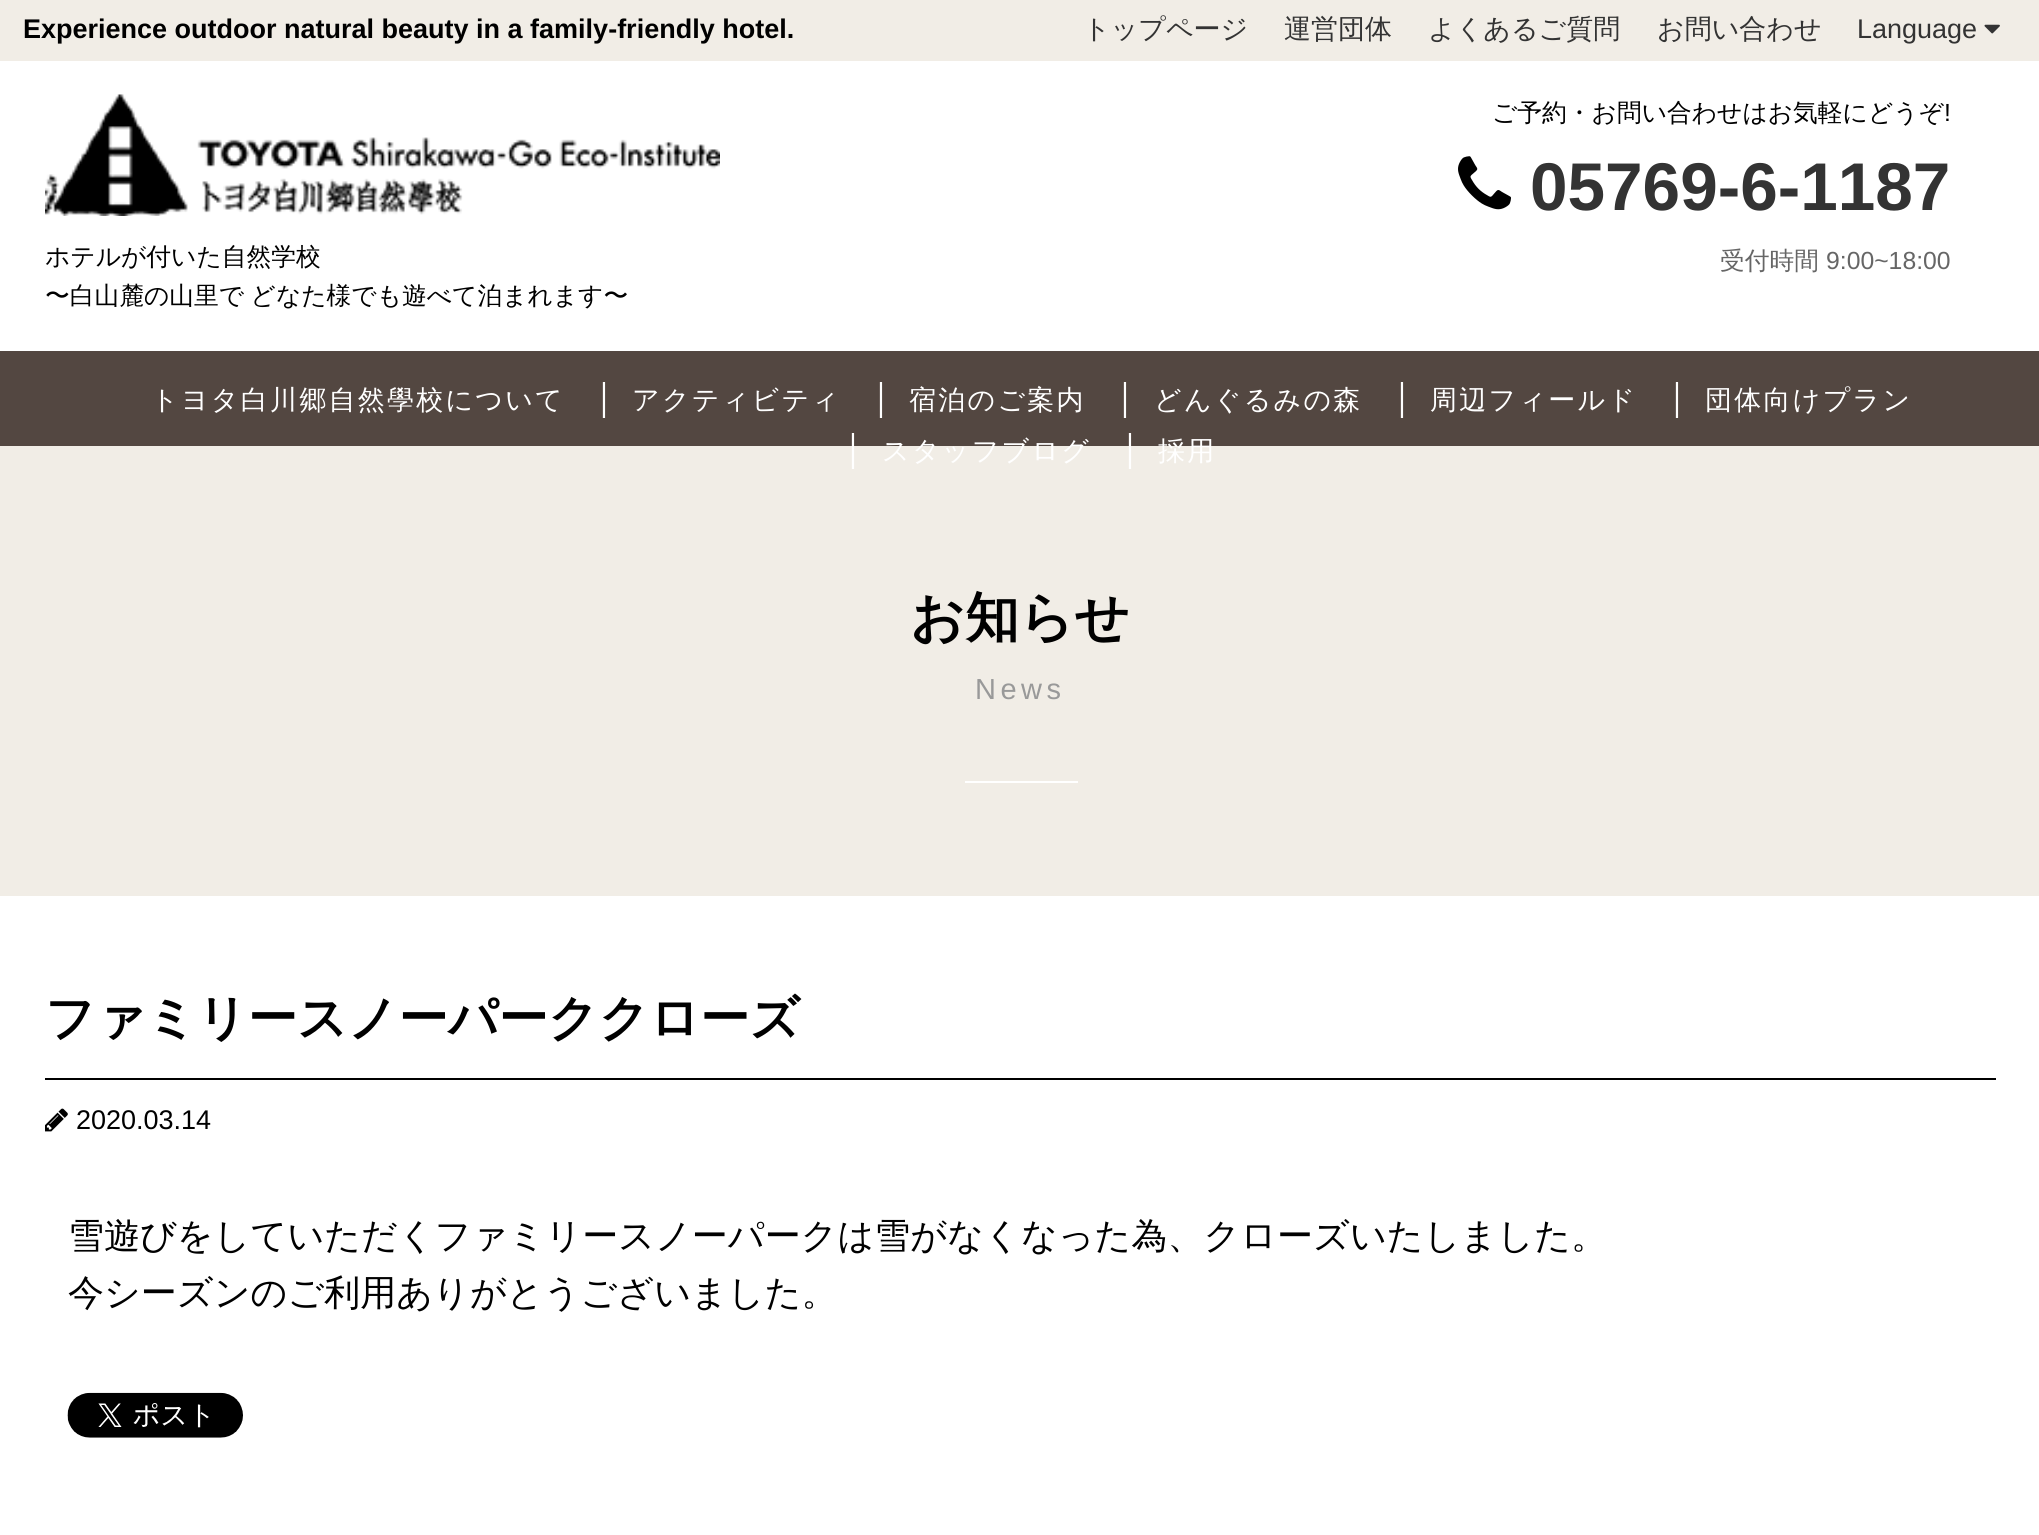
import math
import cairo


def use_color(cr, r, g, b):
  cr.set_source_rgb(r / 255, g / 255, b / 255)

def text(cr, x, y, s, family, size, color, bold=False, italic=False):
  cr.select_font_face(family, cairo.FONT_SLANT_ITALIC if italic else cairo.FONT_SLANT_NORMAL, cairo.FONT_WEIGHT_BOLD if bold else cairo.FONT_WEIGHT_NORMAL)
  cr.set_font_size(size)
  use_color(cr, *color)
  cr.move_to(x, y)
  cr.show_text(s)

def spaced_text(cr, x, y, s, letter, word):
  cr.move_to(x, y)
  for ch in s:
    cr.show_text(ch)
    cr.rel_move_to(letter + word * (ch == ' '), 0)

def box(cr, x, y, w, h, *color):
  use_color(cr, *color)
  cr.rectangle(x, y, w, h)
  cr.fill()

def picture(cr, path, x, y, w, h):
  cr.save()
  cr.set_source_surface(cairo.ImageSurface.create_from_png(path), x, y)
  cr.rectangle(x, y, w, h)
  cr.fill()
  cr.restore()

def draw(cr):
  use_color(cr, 255, 255, 255)
  cr.paint()
  box(cr, 0, 0, 2039, 61, 241, 237, 230)
  picture(cr, "img_01.png", 1984, 24, 16, 10)
  picture(cr, "img_02.png", 45, 94, 675, 122)
  picture(cr, "img_03.png", 1458, 156, 53, 54)
  box(cr, 0, 351, 2039, 95, 83, 71, 65)
  box(cr, 0, 446, 2039, 450, 241, 237, 230)
  box(cr, 965, 781, 113, 2, 255, 255, 255)
  box(cr, 45, 1078, 1951, 2, 0, 0, 0)
  picture(cr, "img_04.png", 45, 1108, 23, 24)
  picture(cr, "img_05.png", 67, 1392, 176, 46)
  text(cr, 23, 38, "Experience outdoor natural beauty in a family-friendly hotel.", "Liberation Sans", 27, (0, 0, 0), bold=True)
  text(cr, 1083, 38, "トップページ", "WenQuanYi Zen Hei Medium", 27, (51, 51, 51))
  text(cr, 1284, 38, "運営団体", "WenQuanYi Zen Hei Medium", 27, (51, 51, 51))
  text(cr, 1428, 38, "よくあるご質問", "WenQuanYi Zen Hei Medium", 27, (51, 51, 51))
  text(cr, 1657, 38, "お問い合わせ", "WenQuanYi Zen Hei Medium", 27, (51, 51, 51))
  text(cr, 1857, 38, "Language", "Liberation Sans", 27, (51, 51, 51))
  text(cr, 45, 265, "ホテルが付いた自然学校", "WenQuanYi Zen Hei Medium", 24.75, (0, 0, 0))
  spaced_text(cr, 45, 304, "〜白山麓の山里で どなた様でも遊べて泊まれます〜", 0, -1)
  text(cr, 1492, 121, "ご予約・お問い合わせはお気軽にどうぞ", "WenQuanYi Zen Hei Medium", 24.75, (0, 0, 0))
  text(cr, 1944, 121, "!", "Liberation Sans", 24.75, (0, 0, 0))
  text(cr, 1530, 210, "05769-6-1187", "Liberation Sans", 67.5, (51, 51, 51), bold=True)
  text(cr, 1720, 269, "受付時間", "WenQuanYi Zen Hei Medium", 24.75, (102, 102, 102))
  text(cr, 1826, 269, "9:00~18:00", "Liberation Sans", 24.75, (102, 102, 102))
  cr.select_font_face("WenQuanYi Zen Hei Medium")
  cr.set_font_size(27)
  use_color(cr, 255, 255, 255)
  spaced_text(cr, 151, 409, "トヨタ白川郷自然學校について", 2.25, 0)
  text(cr, 586, 409, "｜", "WenQuanYi Zen Hei Medium", 36, (255, 255, 255))
  cr.set_font_size(27)
  spaced_text(cr, 632, 409, "アクティビティ", 2.25, 0)
  text(cr, 863, 409, "｜", "WenQuanYi Zen Hei Medium", 36, (255, 255, 255))
  cr.set_font_size(27)
  spaced_text(cr, 909, 409, "宿泊のご案内", 2.25, 0)
  text(cr, 1107, 409, "｜", "WenQuanYi Zen Hei Medium", 36, (255, 255, 255))
  cr.set_font_size(27)
  spaced_text(cr, 1154, 409, "どんぐるみの森", 2.25, 0)
  text(cr, 1384, 409, "｜", "WenQuanYi Zen Hei Medium", 36, (255, 255, 255))
  cr.set_font_size(27)
  spaced_text(cr, 1430, 409, "周辺フィールド", 2.25, 0)
  text(cr, 1659, 409, "｜", "WenQuanYi Zen Hei Medium", 36, (255, 255, 255))
  cr.set_font_size(27)
  spaced_text(cr, 1705, 409, "団体向けプラン", 2.25, 0)
  text(cr, 835, 460, "｜", "WenQuanYi Zen Hei Medium", 36, (255, 255, 255))
  cr.set_font_size(27)
  spaced_text(cr, 882, 460, "スタッフブログ", 2.25, 0)
  text(cr, 1112, 460, "｜", "WenQuanYi Zen Hei Medium", 36, (255, 255, 255))
  cr.set_font_size(27)
  spaced_text(cr, 1158, 460, "採用", 2.25, 0)
  text(cr, 910, 636, "お知らせ", "WenQuanYi Zen Hei", 54, (0, 0, 0), bold=True)
  cr.select_font_face("Liberation Sans")
  cr.set_font_size(29)
  use_color(cr, 153, 153, 153)
  spaced_text(cr, 975, 699, "News", 4.5, 0)
  text(cr, 45, 1035, "ファミリースノーパーククローズ", "WenQuanYi Zen Hei", 49.5, (0, 0, 0), bold=True)
  text(cr, 76, 1129, "2020.03.14", "Liberation Sans", 27, (0, 0, 0))
  text(cr, 68, 1248, "雪遊びをしていただくファミリースノーパークは雪がなくなった為、クローズいたしました。", "WenQuanYi Zen Hei Medium", 36, (0, 0, 0))
  text(cr, 68, 1305, "今シーズンのご利用ありがとうございました。", "WenQuanYi Zen Hei Medium", 36, (0, 0, 0))


surface = cairo.ImageSurface(cairo.FORMAT_RGB24, 2039, 1535)
cr = cairo.Context(surface)
options = cairo.FontOptions()
options.set_hint_metrics(cairo.HINT_METRICS_OFF)
options.set_hint_style(cairo.HINT_STYLE_NONE)
cr.set_font_options(options)
cr.set_miter_limit(4)
draw(cr)
surface.write_to_png("out.png")
